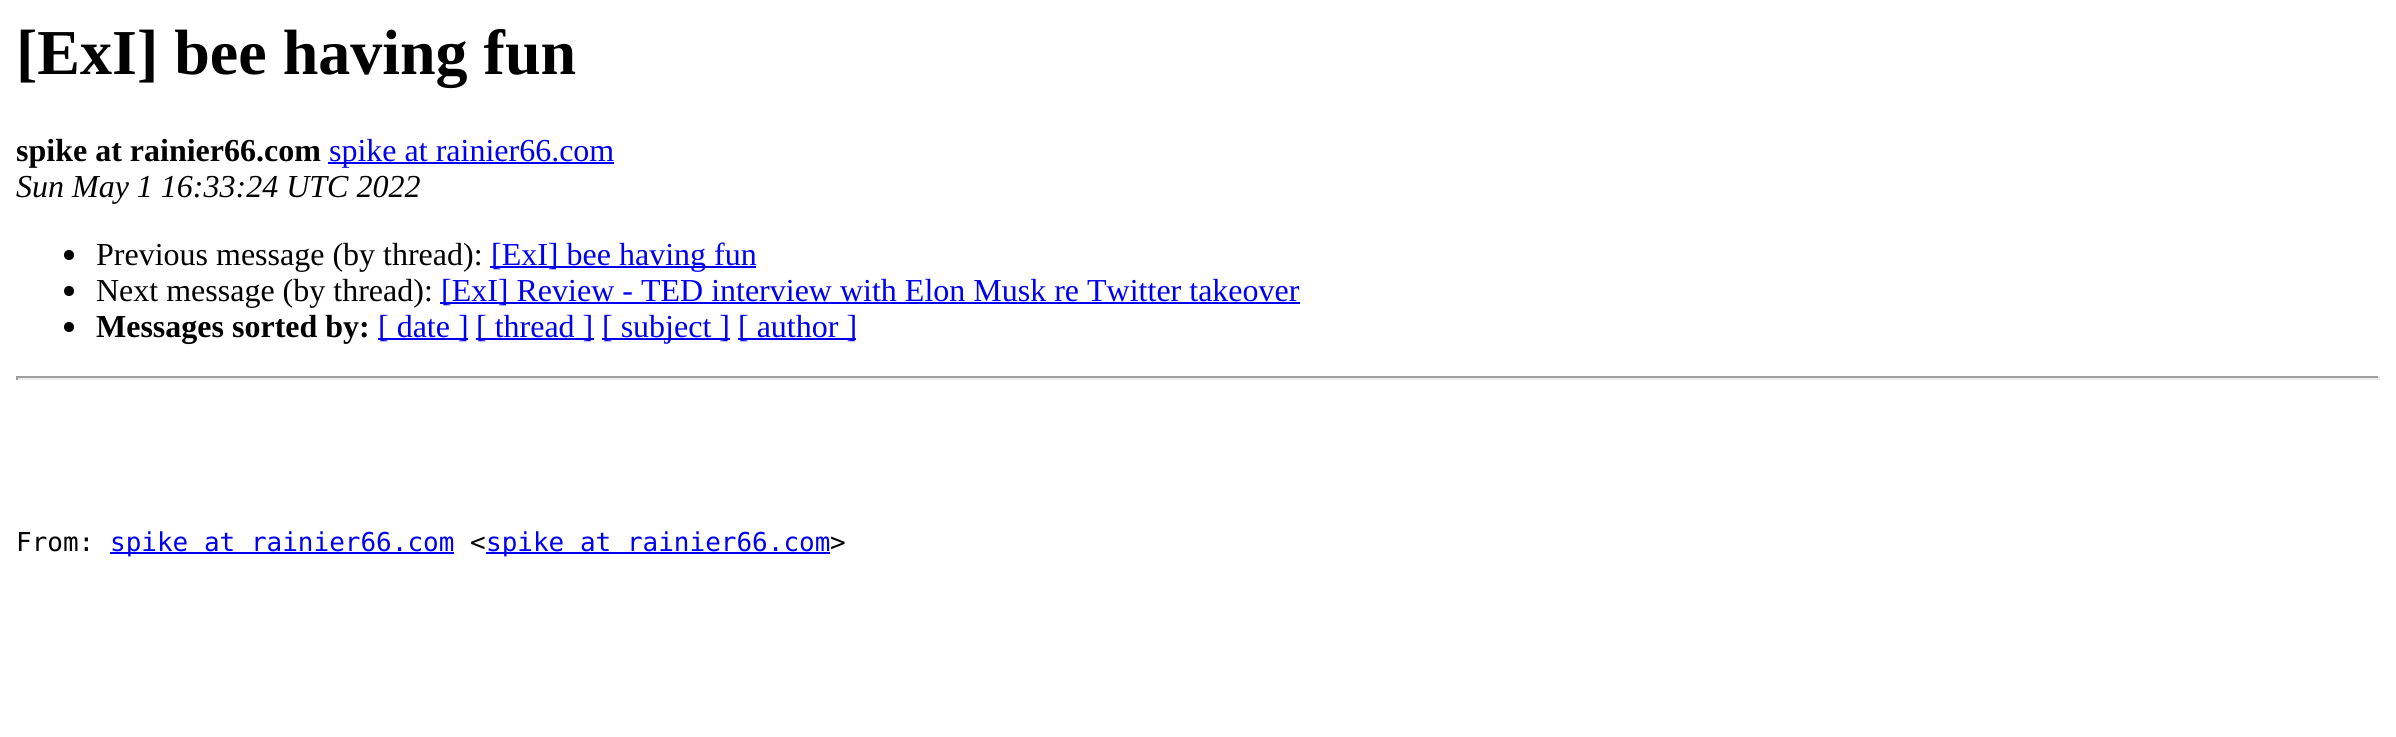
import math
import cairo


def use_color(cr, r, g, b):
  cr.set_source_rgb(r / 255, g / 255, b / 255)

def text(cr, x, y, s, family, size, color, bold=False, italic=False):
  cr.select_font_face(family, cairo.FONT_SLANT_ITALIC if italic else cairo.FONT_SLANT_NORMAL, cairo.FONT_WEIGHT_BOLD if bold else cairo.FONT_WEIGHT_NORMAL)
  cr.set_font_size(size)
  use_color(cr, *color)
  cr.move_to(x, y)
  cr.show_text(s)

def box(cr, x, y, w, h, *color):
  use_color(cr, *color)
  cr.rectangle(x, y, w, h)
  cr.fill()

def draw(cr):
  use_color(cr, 255, 255, 255)
  cr.paint()
  box(cr, 328, 162, 286, 2, 0, 0, 238)
  use_color(cr, 0, 0, 0)
  cr.arc(69, 255, 5, 0, 2 * math.pi)
  cr.fill()
  box(cr, 490, 266, 266, 2, 0, 0, 238)
  use_color(cr, 0, 0, 0)
  cr.arc(69, 291, 5, 0, 2 * math.pi)
  cr.fill()
  box(cr, 440, 302, 860, 2, 0, 0, 238)
  use_color(cr, 0, 0, 0)
  cr.arc(69, 327, 5, 0, 2 * math.pi)
  cr.fill()
  box(cr, 378, 338, 90, 2, 0, 0, 238)
  box(cr, 476, 338, 118, 2, 0, 0, 238)
  box(cr, 602, 338, 128, 2, 0, 0, 238)
  box(cr, 738, 338, 118, 2, 0, 0, 238)
  box(cr, 16, 376, 2364, 2, 159, 159, 159)
  box(cr, 2378, 376, 2, 4, 238, 238, 238)
  box(cr, 16, 378, 2364, 2, 238, 238, 238)
  box(cr, 16, 376, 2, 4, 159, 159, 159)
  box(cr, 110, 552, 344, 2, 0, 0, 238)
  box(cr, 486, 552, 344, 2, 0, 0, 238)
  text(cr, 16, 74, "[ExI] bee having fun", "Liberation Serif", 64, (0, 0, 0), bold=True)
  text(cr, 16, 161, "spike at rainier66.com", "Liberation Serif", 32, (0, 0, 0), bold=True)
  text(cr, 329, 161, "spike at rainier66.com", "Liberation Serif", 32, (0, 0, 238))
  text(cr, 16, 197, "Sun May 1 16:33:24 UTC 2022", "Liberation Serif", 32, (0, 0, 0), italic=True)
  text(cr, 96, 265, "Previous message (by thread):", "Liberation Serif", 32, (0, 0, 0))
  text(cr, 491, 265, "[ExI] bee having fun", "Liberation Serif", 32, (0, 0, 238))
  text(cr, 96, 301, "Next message (by thread):", "Liberation Serif", 32, (0, 0, 0))
  text(cr, 441, 301, "[ExI] Review - TED interview with Elon Musk re Twitter takeover", "Liberation Serif", 32, (0, 0, 238))
  text(cr, 96, 337, "Messages sorted by:", "Liberation Serif", 32, (0, 0, 0), bold=True)
  text(cr, 378, 337, "[ date ]", "Liberation Serif", 32, (0, 0, 238))
  text(cr, 476, 337, "[ thread ]", "Liberation Serif", 32, (0, 0, 238))
  text(cr, 602, 337, "[ subject ]", "Liberation Serif", 32, (0, 0, 238))
  text(cr, 738, 337, "[ author ]", "Liberation Serif", 32, (0, 0, 238))
  text(cr, 16, 551, "From:", "DejaVu Sans Mono", 26, (0, 0, 0))
  text(cr, 110, 551, "spike at rainier66.com", "DejaVu Sans Mono", 26, (0, 0, 238))
  text(cr, 470, 551, "<", "DejaVu Sans Mono", 26, (0, 0, 0))
  text(cr, 486, 551, "spike at rainier66.com", "DejaVu Sans Mono", 26, (0, 0, 238))
  text(cr, 830, 551, ">", "DejaVu Sans Mono", 26, (0, 0, 0))


surface = cairo.ImageSurface(cairo.FORMAT_RGB24, 2396, 737)
cr = cairo.Context(surface)
options = cairo.FontOptions()
options.set_hint_metrics(cairo.HINT_METRICS_OFF)
options.set_hint_style(cairo.HINT_STYLE_NONE)
cr.set_font_options(options)
cr.set_miter_limit(4)
draw(cr)
surface.write_to_png("out.png")
